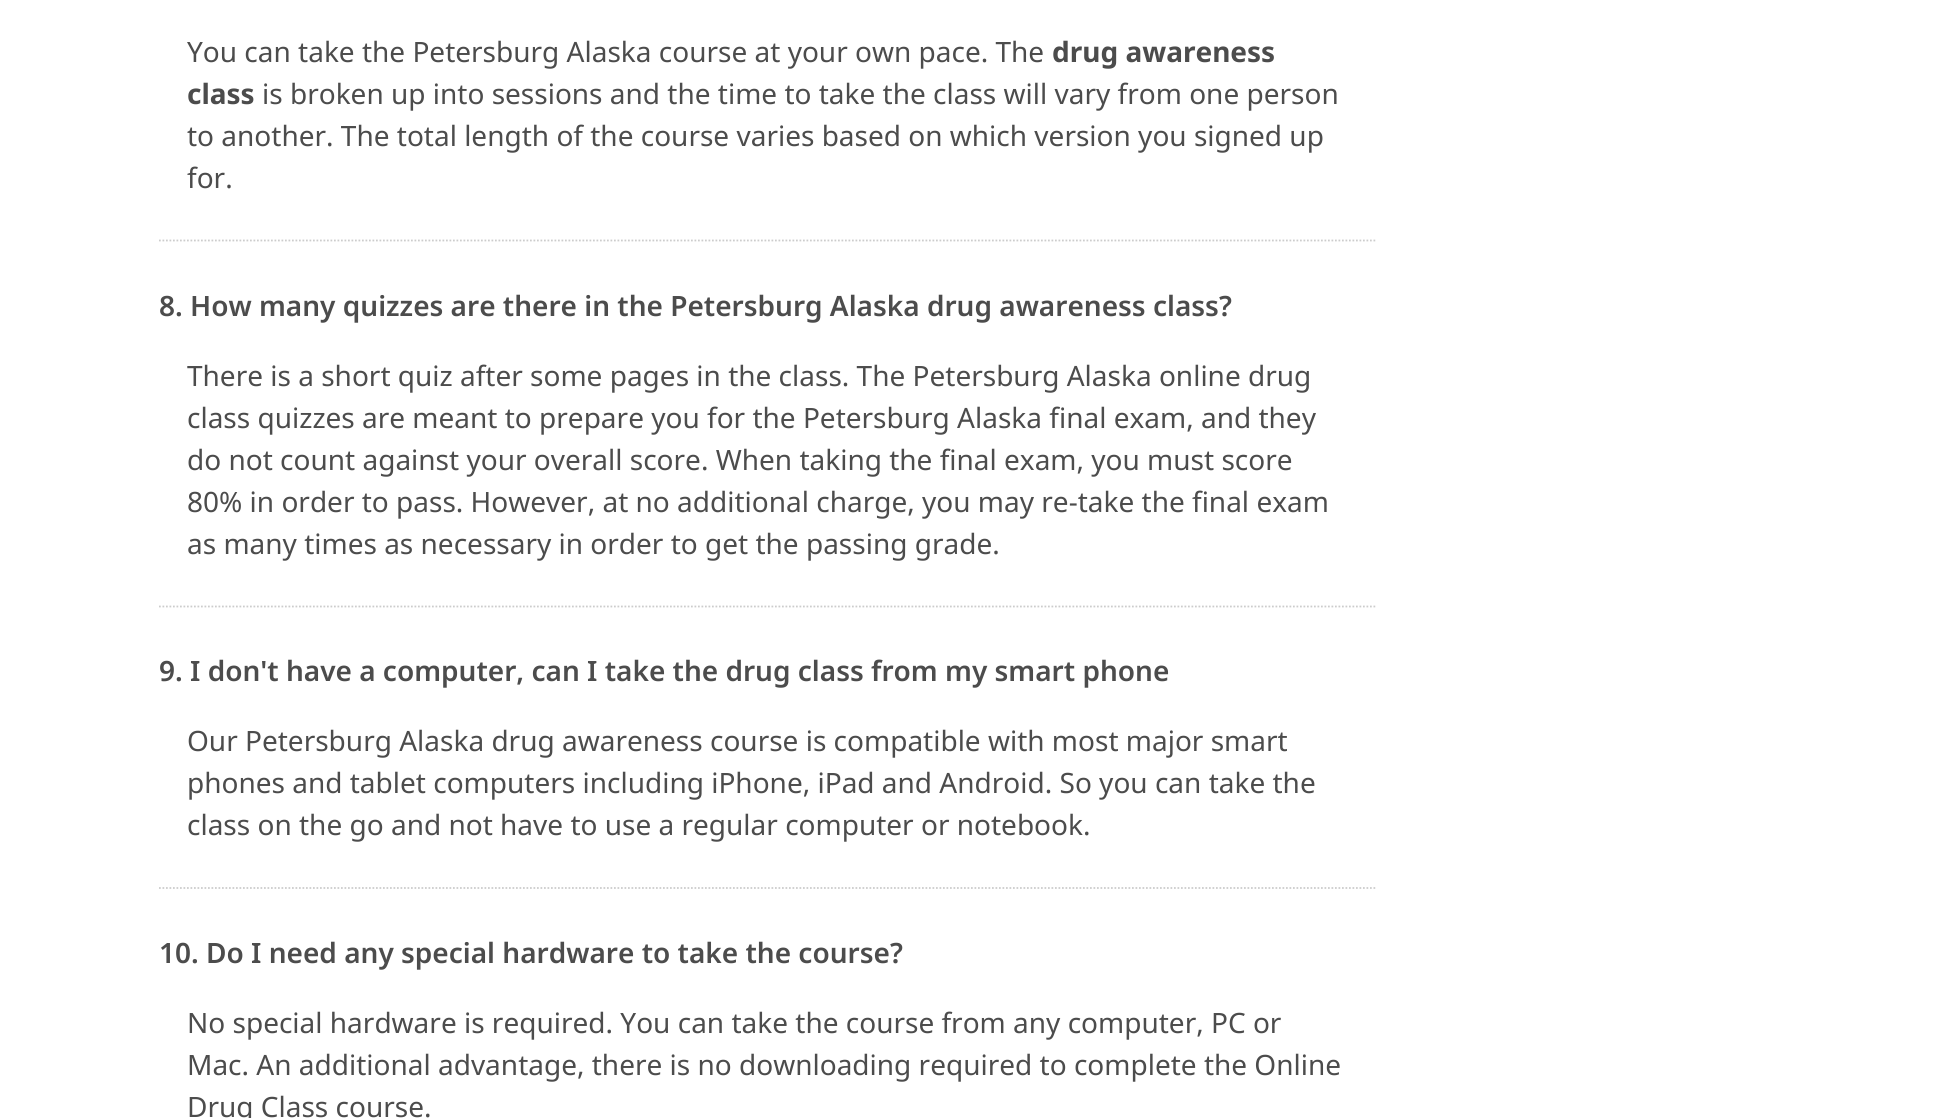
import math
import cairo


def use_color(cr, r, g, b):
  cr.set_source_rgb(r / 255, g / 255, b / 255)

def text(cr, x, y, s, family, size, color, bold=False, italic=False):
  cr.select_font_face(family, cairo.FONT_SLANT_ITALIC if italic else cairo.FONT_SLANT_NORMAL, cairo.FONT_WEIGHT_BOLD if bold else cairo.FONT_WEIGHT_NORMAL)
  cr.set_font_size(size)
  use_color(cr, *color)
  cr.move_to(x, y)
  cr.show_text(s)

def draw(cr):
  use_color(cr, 255, 255, 255)
  cr.paint()
  cr.new_path()
  cr.move_to(159, 240.5)
  cr.line_to(1377, 240.5)
  use_color(cr, 204, 204, 204)
  cr.set_line_width(1.8)
  cr.set_dash([1.75, 1.75])
  cr.stroke()
  cr.new_path()
  cr.move_to(159, 606.5)
  cr.line_to(1377, 606.5)
  cr.stroke()
  cr.new_path()
  cr.move_to(159, 888)
  cr.line_to(1377, 888)
  cr.stroke()
  text(cr, 187, 62, "You can take the Petersburg Alaska course at your own pace. The", "Noto Sans", 28, (76, 76, 76))
  text(cr, 1052, 62, "drug awareness", "Noto Sans", 28, (76, 76, 76), bold=True)
  text(cr, 187, 104, "class", "Noto Sans", 28, (76, 76, 76), bold=True)
  text(cr, 262, 104, "is broken up into sessions and the time to take the class will vary from one person", "Noto Sans", 28, (76, 76, 76))
  text(cr, 187, 146, "to another. The total length of the course varies based on which version you signed up", "Noto Sans", 28, (76, 76, 76))
  text(cr, 187, 188, "for.", "Noto Sans", 28, (76, 76, 76))
  text(cr, 159, 316, "8. How many quizzes are there in the Petersburg Alaska drug awareness class?", "Noto Sans SemiBold", 28, (76, 76, 76))
  text(cr, 187, 386, "There is a short quiz after some pages in the class. The Petersburg Alaska online drug", "Noto Sans", 28, (76, 76, 76))
  text(cr, 187, 428, "class quizzes are meant to prepare you for the Petersburg Alaska final exam, and they", "Noto Sans", 28, (76, 76, 76))
  text(cr, 187, 470, "do not count against your overall score. When taking the final exam, you must score", "Noto Sans", 28, (76, 76, 76))
  text(cr, 187, 512, "80% in order to pass. However, at no additional charge, you may re-take the final exam", "Noto Sans", 28, (76, 76, 76))
  text(cr, 187, 554, "as many times as necessary in order to get the passing grade.", "Noto Sans", 28, (76, 76, 76))
  text(cr, 159, 681, "9. I don't have a computer, can I take the drug class from my smart phone", "Noto Sans SemiBold", 28, (76, 76, 76))
  text(cr, 187, 751, "Our Petersburg Alaska drug awareness course is compatible with most major smart", "Noto Sans", 28, (76, 76, 76))
  text(cr, 187, 793, "phones and tablet computers including iPhone, iPad and Android. So you can take the", "Noto Sans", 28, (76, 76, 76))
  text(cr, 187, 835, "class on the go and not have to use a regular computer or notebook.", "Noto Sans", 28, (76, 76, 76))
  text(cr, 159, 963, "10. Do I need any special hardware to take the course?", "Noto Sans SemiBold", 28, (76, 76, 76))
  text(cr, 187, 1033, "No special hardware is required. You can take the course from any computer, PC or", "Noto Sans", 28, (76, 76, 76))
  text(cr, 187, 1075, "Mac. An additional advantage, there is no downloading required to complete the Online", "Noto Sans", 28, (76, 76, 76))
  text(cr, 187, 1117, "Drug Class course.", "Noto Sans", 28, (76, 76, 76))


surface = cairo.ImageSurface(cairo.FORMAT_RGB24, 1956, 1118)
cr = cairo.Context(surface)
options = cairo.FontOptions()
options.set_hint_metrics(cairo.HINT_METRICS_OFF)
options.set_hint_style(cairo.HINT_STYLE_NONE)
cr.set_font_options(options)
cr.set_miter_limit(4)
draw(cr)
surface.write_to_png("out.png")
